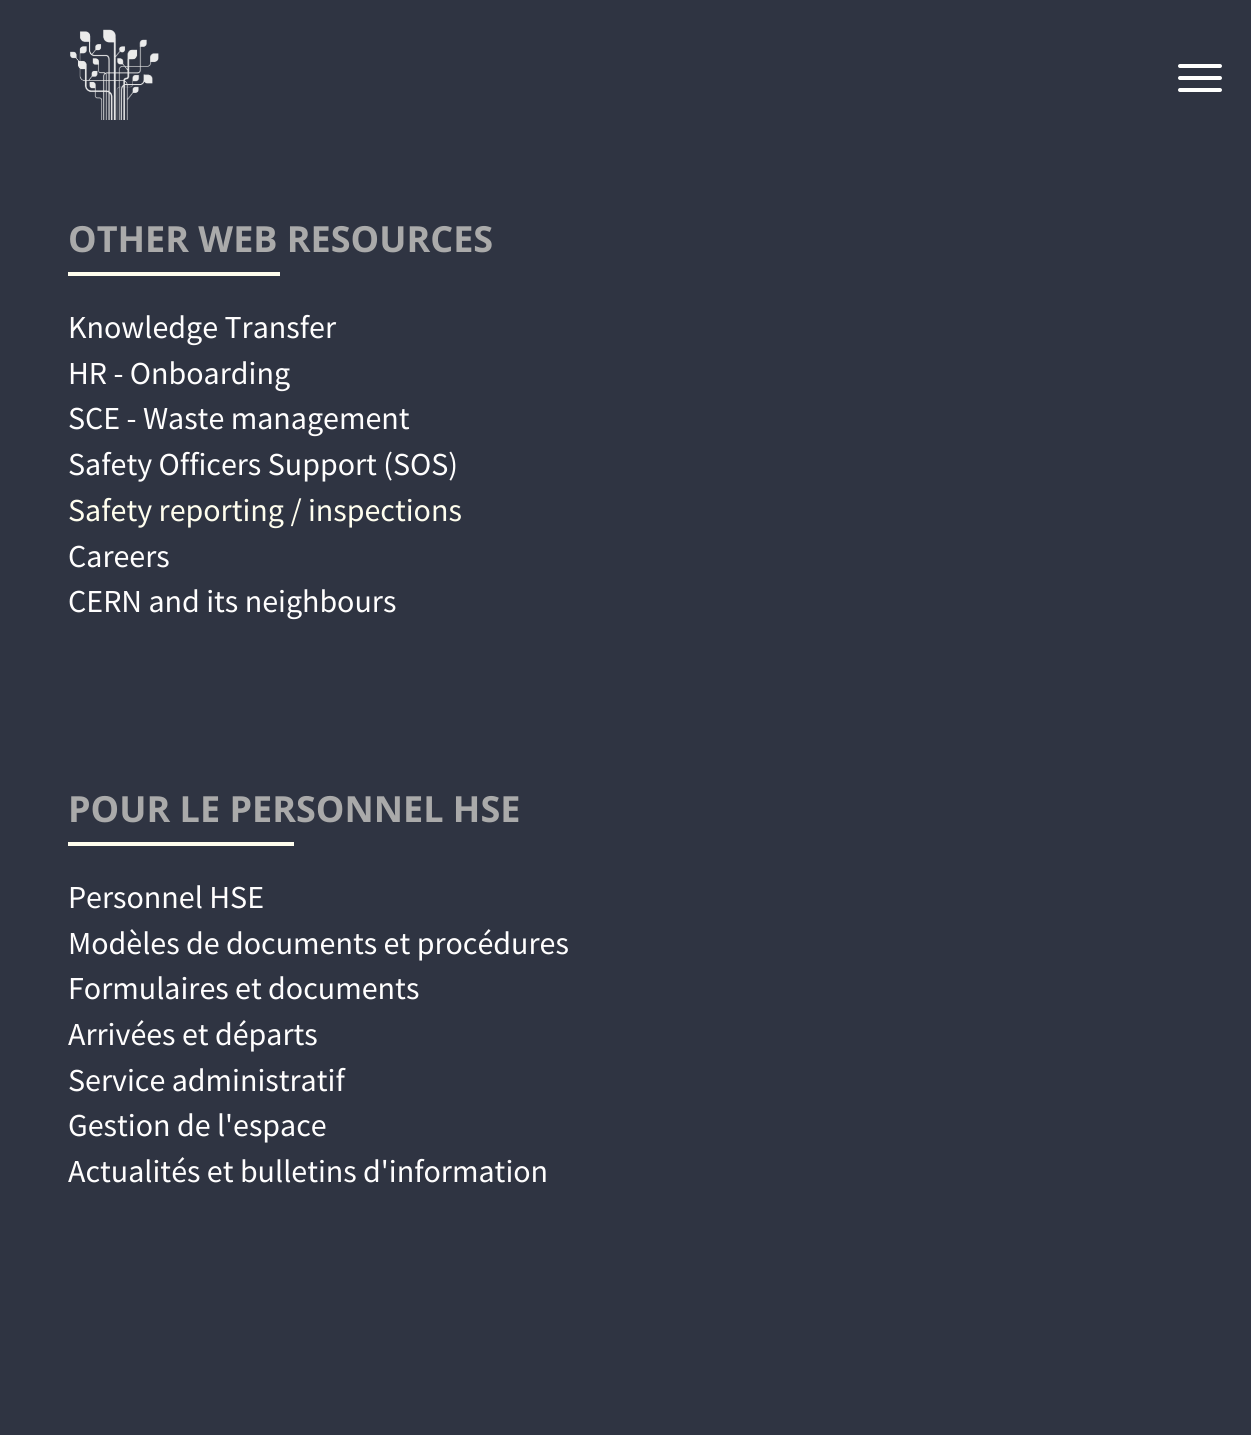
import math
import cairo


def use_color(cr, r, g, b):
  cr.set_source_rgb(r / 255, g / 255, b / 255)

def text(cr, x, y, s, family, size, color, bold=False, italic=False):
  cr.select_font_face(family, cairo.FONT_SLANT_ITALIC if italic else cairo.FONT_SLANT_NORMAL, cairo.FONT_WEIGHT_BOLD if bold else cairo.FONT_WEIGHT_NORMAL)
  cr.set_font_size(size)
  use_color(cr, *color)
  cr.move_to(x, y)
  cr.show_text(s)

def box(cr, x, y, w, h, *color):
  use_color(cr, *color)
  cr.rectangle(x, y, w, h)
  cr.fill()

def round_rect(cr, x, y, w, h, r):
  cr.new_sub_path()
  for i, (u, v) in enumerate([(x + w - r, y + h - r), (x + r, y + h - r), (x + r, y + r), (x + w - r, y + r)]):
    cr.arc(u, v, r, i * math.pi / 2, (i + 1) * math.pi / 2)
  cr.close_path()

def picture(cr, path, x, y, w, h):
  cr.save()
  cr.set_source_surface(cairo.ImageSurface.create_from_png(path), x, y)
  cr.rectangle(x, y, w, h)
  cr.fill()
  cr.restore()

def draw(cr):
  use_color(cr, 47, 52, 66)
  cr.paint()
  picture(cr, "img_01.png", 70, 29, 89, 91)
  use_color(cr, 255, 255, 254)
  round_rect(cr, 1178, 64, 44, 4, 2)
  cr.fill()
  round_rect(cr, 1178, 76, 44, 4, 2)
  cr.fill()
  round_rect(cr, 1178, 88, 44, 4, 2)
  cr.fill()
  box(cr, 68, 272, 212, 4, 255, 254, 238)
  box(cr, 68, 842, 226, 4, 255, 254, 238)
  text(cr, 68, 252, "OTHER WEB RESOURCES", "Open Sans", 36, (170, 170, 170), bold=True)
  text(cr, 68, 338, "Knowledge Transfer", "Source Sans Pro", 32, (255, 254, 254))
  text(cr, 68, 384, "HR - Onboarding", "Source Sans Pro", 32, (255, 254, 254))
  text(cr, 68, 429, "SCE - Waste management", "Source Sans Pro", 32, (255, 254, 254))
  text(cr, 68, 475, "Safety Officers Support (SOS)", "Source Sans Pro", 32, (255, 254, 254))
  text(cr, 68, 521, "Safety reporting / inspections", "Source Sans Pro", 32, (255, 254, 238))
  text(cr, 68, 567, "Careers", "Source Sans Pro", 32, (255, 254, 254))
  text(cr, 68, 612, "CERN and its neighbours", "Source Sans Pro", 32, (255, 254, 254))
  text(cr, 68, 822, "POUR LE PERSONNEL HSE", "Open Sans", 36, (170, 170, 170), bold=True)
  text(cr, 68, 908, "Personnel HSE", "Source Sans Pro", 32, (255, 254, 254))
  text(cr, 68, 954, "Modèles de documents et procédures", "Source Sans Pro", 32, (255, 254, 254))
  text(cr, 68, 999, "Formulaires et documents", "Source Sans Pro", 32, (255, 254, 254))
  text(cr, 68, 1045, "Arrivées et départs", "Source Sans Pro", 32, (255, 254, 254))
  text(cr, 68, 1091, "Service administratif", "Source Sans Pro", 32, (255, 254, 254))
  text(cr, 68, 1136, "Gestion de l'espace", "Source Sans Pro", 32, (255, 254, 254))
  text(cr, 68, 1182, "Actualités et bulletins d'information", "Source Sans Pro", 32, (255, 254, 254))


surface = cairo.ImageSurface(cairo.FORMAT_RGB24, 1251, 1435)
cr = cairo.Context(surface)
options = cairo.FontOptions()
options.set_hint_metrics(cairo.HINT_METRICS_OFF)
options.set_hint_style(cairo.HINT_STYLE_NONE)
cr.set_font_options(options)
cr.set_miter_limit(4)
draw(cr)
surface.write_to_png("out.png")
